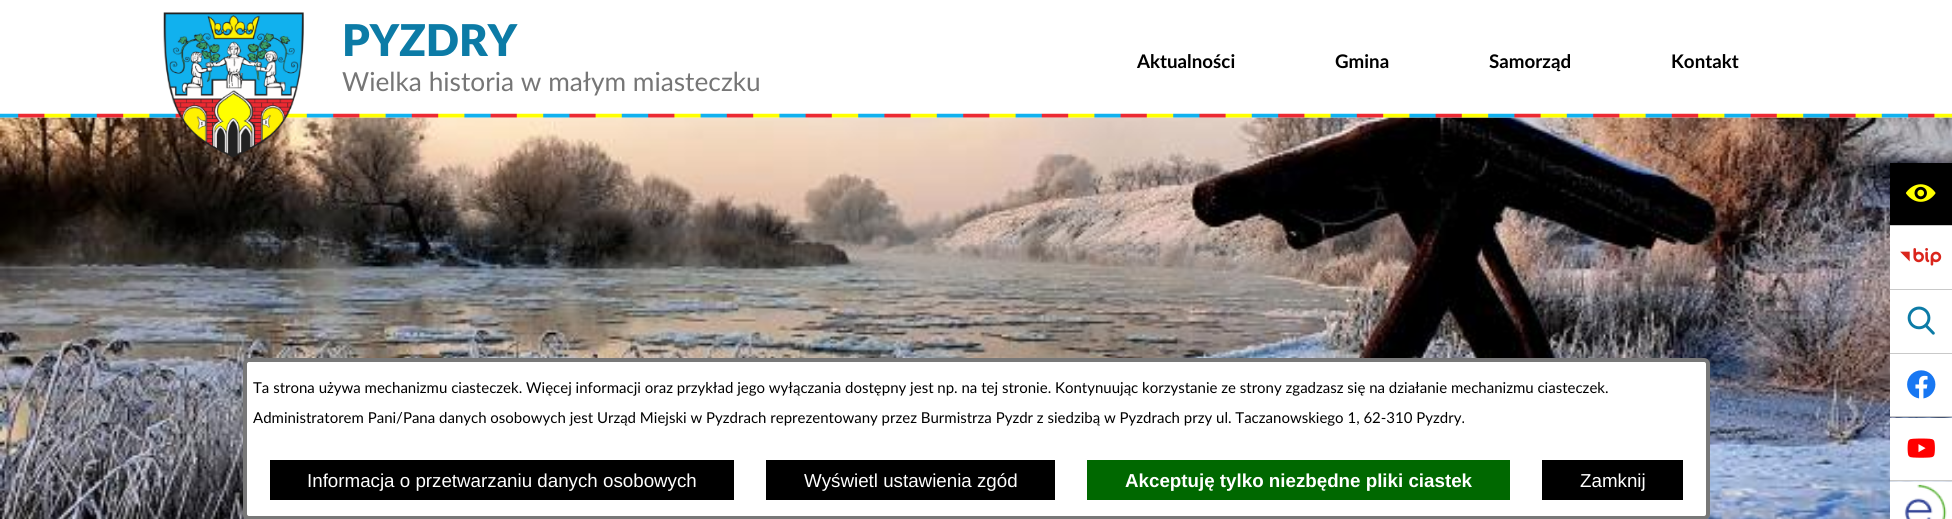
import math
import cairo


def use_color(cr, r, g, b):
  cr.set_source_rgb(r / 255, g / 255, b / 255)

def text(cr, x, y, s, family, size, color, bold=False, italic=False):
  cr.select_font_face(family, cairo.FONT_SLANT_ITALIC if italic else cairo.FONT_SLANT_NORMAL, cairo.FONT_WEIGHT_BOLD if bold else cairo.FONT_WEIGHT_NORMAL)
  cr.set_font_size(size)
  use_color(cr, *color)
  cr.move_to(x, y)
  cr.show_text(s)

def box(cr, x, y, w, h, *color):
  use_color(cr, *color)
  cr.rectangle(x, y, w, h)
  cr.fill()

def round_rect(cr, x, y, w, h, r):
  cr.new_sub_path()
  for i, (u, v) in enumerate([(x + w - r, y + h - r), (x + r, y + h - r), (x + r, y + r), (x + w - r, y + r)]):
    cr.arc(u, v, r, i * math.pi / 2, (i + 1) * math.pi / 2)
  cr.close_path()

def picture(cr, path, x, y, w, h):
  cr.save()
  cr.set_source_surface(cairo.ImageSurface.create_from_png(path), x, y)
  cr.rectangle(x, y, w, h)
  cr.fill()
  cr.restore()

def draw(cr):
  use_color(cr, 255, 255, 255)
  cr.paint()
  picture(cr, "img_09.png", 0, 117, 1952, 402)
  picture(cr, "img_08.png", 0, 113, 1952, 5)
  picture(cr, "img_01.png", 163, 12, 141, 146)
  box(cr, 1890, 225, 62, 1, 201, 201, 201)
  box(cr, 1890, 163, 62, 62, 0, 0, 0)
  picture(cr, "img_02.png", 1906, 184, 30, 18)
  box(cr, 1890, 289, 62, 1, 201, 201, 201)
  box(cr, 1890, 226, 62, 63, 255, 255, 255)
  picture(cr, "img_03.png", 1900, 248, 42, 18)
  box(cr, 1890, 353, 62, 1, 201, 201, 201)
  box(cr, 1890, 290, 62, 63, 255, 255, 255)
  picture(cr, "img_04.png", 1907, 306, 28, 29)
  box(cr, 1890, 416, 62, 1, 201, 201, 201)
  box(cr, 1890, 354, 62, 62, 255, 255, 255)
  picture(cr, "img_05.png", 1907, 370, 29, 29)
  box(cr, 1890, 480, 62, 1, 201, 201, 201)
  box(cr, 1890, 418, 62, 62, 255, 255, 255)
  picture(cr, "img_06.png", 1907, 438, 28, 20)
  picture(cr, "img_07.png", 1890, 481, 62, 38)
  round_rect(cr, 245, 360, 1463, 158, 4)
  cr.fill_preserve()
  use_color(cr, 120, 120, 120)
  cr.set_line_width(4)
  cr.stroke()
  box(cr, 270, 460, 464, 40, 0, 0, 0)
  box(cr, 766, 460, 289, 40, 0, 0, 0)
  box(cr, 1087, 460, 423, 40, 0, 104, 0)
  box(cr, 1542, 460, 141, 40, 0, 0, 0)
  text(cr, 342, 56, "PYZDRY", "Lato Black", 43.75, (12, 123, 166))
  text(cr, 342, 91, "Wielka historia w małym miasteczku", "Lato", 26.25, (118, 118, 118))
  text(cr, 1137, 68, "Aktualności", "Lato", 18.75, (0, 0, 0), bold=True)
  text(cr, 1335, 68, "Gmina", "Lato", 18.75, (0, 0, 0), bold=True)
  text(cr, 1489, 68, "Samorząd", "Lato", 18.75, (0, 0, 0), bold=True)
  text(cr, 1671, 68, "Kontakt", "Lato", 18.75, (0, 0, 0), bold=True)
  text(cr, 253, 393, "Ta strona używa mechanizmu ciasteczek. Więcej informacji oraz przykład jego wyłączania dostępny jest np. na tej stronie. Kontynuując korzystanie ze strony zgadzasz się na działanie mechanizmu ciasteczek.", "Lato", 15, (0, 0, 0))
  text(cr, 253, 423, "Administratorem Pani/Pana danych osobowych jest Urząd Miejski w Pyzdrach reprezentowany przez Burmistrza Pyzdr z siedzibą w Pyzdrach przy ul. Taczanowskiego 1, 62-310 Pyzdry.", "Lato", 15, (0, 0, 0))
  text(cr, 307, 487, "Informacja o przetwarzaniu danych osobowych", "Liberation Sans", 18.75, (255, 255, 255))
  text(cr, 804, 487, "Wyświetl ustawienia zgód", "Liberation Sans", 18.75, (255, 255, 255))
  text(cr, 1125, 487, "Akceptuję tylko niezbędne pliki ciastek", "Liberation Sans", 18.75, (255, 255, 255), bold=True)
  text(cr, 1580, 487, "Zamknij", "Liberation Sans", 18.75, (255, 255, 255))


surface = cairo.ImageSurface(cairo.FORMAT_RGB24, 1952, 519)
cr = cairo.Context(surface)
options = cairo.FontOptions()
options.set_hint_metrics(cairo.HINT_METRICS_OFF)
options.set_hint_style(cairo.HINT_STYLE_NONE)
cr.set_font_options(options)
cr.set_miter_limit(4)
draw(cr)
surface.write_to_png("out.png")
